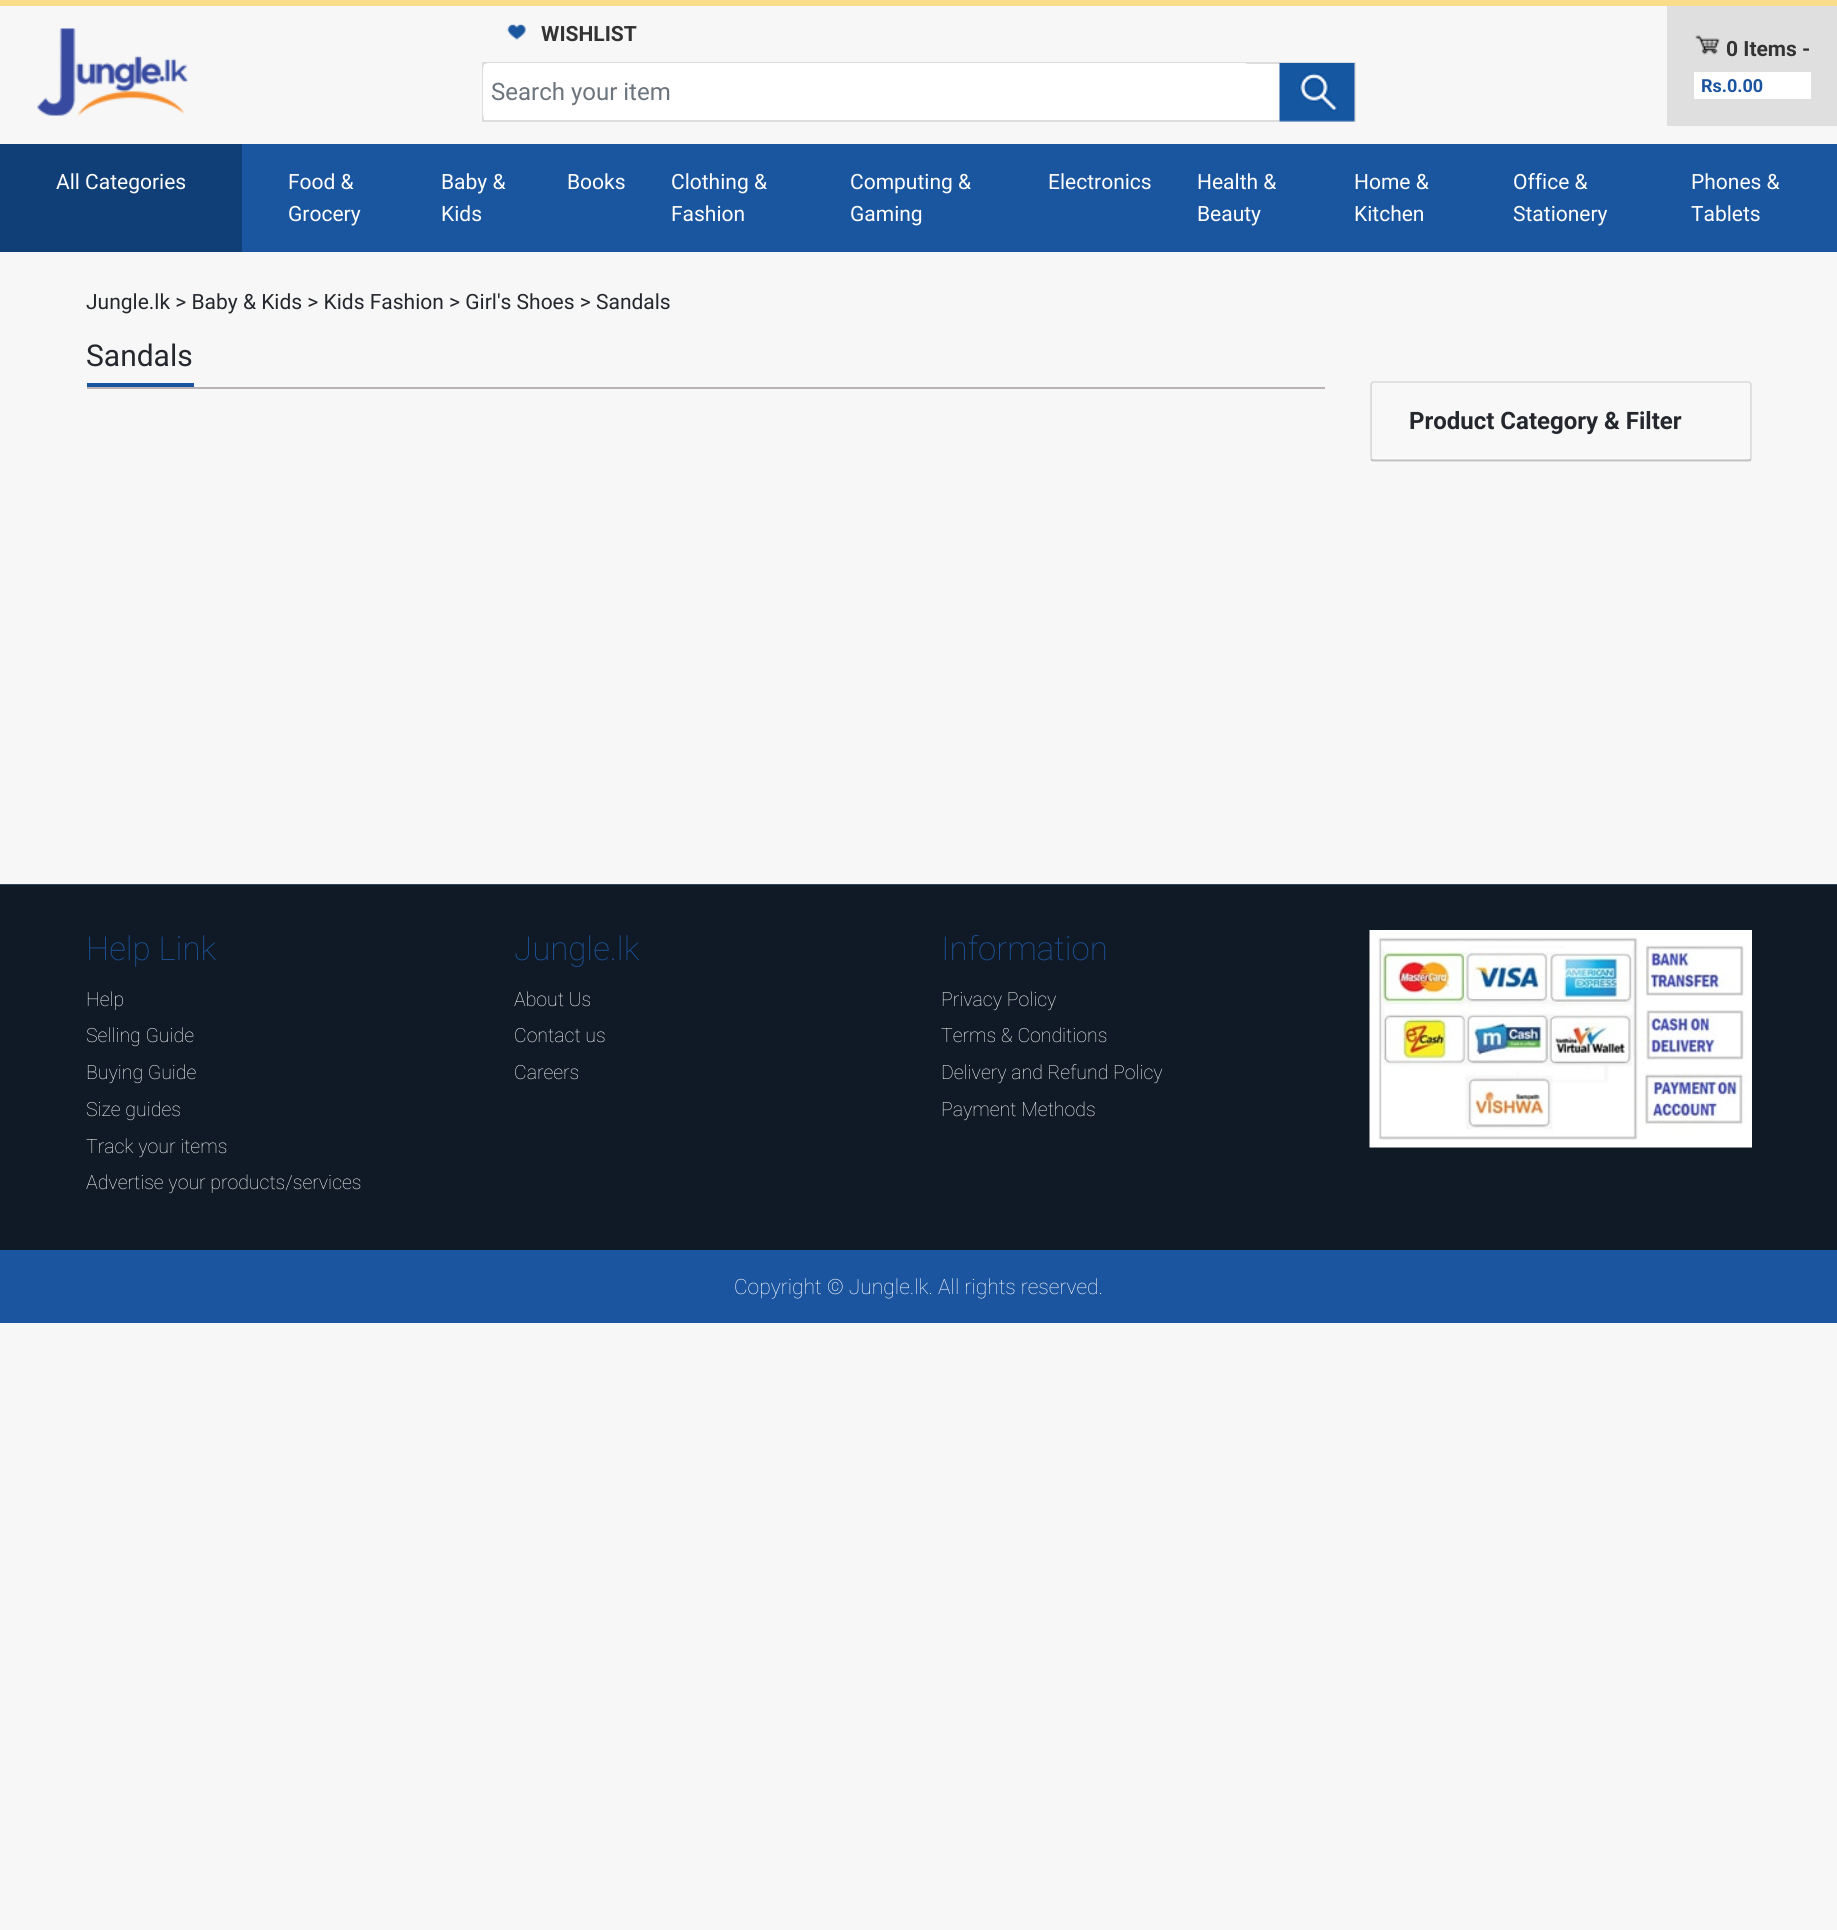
import math
import cairo


def use_color(cr, r, g, b):
  cr.set_source_rgb(r / 255, g / 255, b / 255)

def text(cr, x, y, s, family, size, color, bold=False, italic=False):
  cr.select_font_face(family, cairo.FONT_SLANT_ITALIC if italic else cairo.FONT_SLANT_NORMAL, cairo.FONT_WEIGHT_BOLD if bold else cairo.FONT_WEIGHT_NORMAL)
  cr.set_font_size(size)
  use_color(cr, *color)
  cr.move_to(x, y)
  cr.show_text(s)

def box(cr, x, y, w, h, *color):
  use_color(cr, *color)
  cr.rectangle(x, y, w, h)
  cr.fill()

def round_rect(cr, x, y, w, h, r):
  cr.new_sub_path()
  for i, (u, v) in enumerate([(x + w - r, y + h - r), (x + r, y + h - r), (x + r, y + r), (x + w - r, y + r)]):
    cr.arc(u, v, r, i * math.pi / 2, (i + 1) * math.pi / 2)
  cr.close_path()

def picture(cr, path, x, y, w, h):
  cr.save()
  cr.set_source_surface(cairo.ImageSurface.create_from_png(path), x, y)
  cr.rectangle(x, y, w, h)
  cr.fill()
  cr.restore()

def draw(cr):
  use_color(cr, 247, 247, 247)
  cr.paint()
  box(cr, 0, 0, 1837, 6, 249, 221, 138)
  picture(cr, "img_01.png", 37, 28, 151, 88)
  picture(cr, "img_02.png", 507, 23, 19, 17)
  box(cr, 484, 64, 796, 56, 255, 255, 255)
  cr.rectangle(483, 63, 872, 58)
  use_color(cr, 221, 221, 221)
  cr.stroke()
  use_color(cr, 255, 255, 255)
  round_rect(cr, 483, 63, 767, 57, 6)
  cr.fill()
  picture(cr, "img_03.png", 1279, 63, 76, 59)
  box(cr, 1667, 6, 170, 120, 224, 223, 223)
  picture(cr, "img_04.png", 1695, 35, 25, 20)
  box(cr, 1694, 72, 117, 27, 255, 255, 255)
  box(cr, 242, 144, 1595, 108, 26, 86, 159)
  box(cr, 0, 144, 242, 108, 16, 63, 119)
  box(cr, 87, 387, 1238, 2, 187, 179, 179)
  box(cr, 87, 383, 107, 4, 27, 85, 159)
  use_color(cr, 255, 255, 255)
  round_rect(cr, 1370, 381, 382, 81, 4)
  cr.fill()
  round_rect(cr, 1371, 382, 380, 79, 3)
  cr.set_source_rgba(0, 0, 0, 0.12)
  cr.stroke()
  cr.set_source_rgba(0, 0, 0, 0.03)
  cr.rectangle(1371, 383, 380, 78)
  cr.fill()
  cr.set_source_rgba(0, 0, 0, 0.12)
  cr.rectangle(1371, 459, 380, 2)
  cr.fill()
  box(cr, 0, 884, 1837, 1, 45, 73, 88)
  box(cr, 0, 885, 1837, 365, 16, 26, 38)
  picture(cr, "img_05.png", 1369, 930, 383, 218)
  box(cr, 0, 1250, 1837, 73, 28, 85, 159)
  text(cr, 541, 41, "WISHLIST", "Roboto", 21, (51, 51, 51), bold=True)
  text(cr, 491, 100, "Search your item", "Roboto", 24, (108, 117, 125))
  text(cr, 1726, 56, "0 Items -", "Roboto", 21, (51, 51, 51), bold=True)
  text(cr, 1701, 92, "Rs.0.00", "Roboto", 18, (28, 85, 159), bold=True)
  text(cr, 56, 189, "All Categories", "Roboto", 21, (255, 255, 255))
  text(cr, 288, 189, "Food &", "Roboto", 21, (255, 255, 255))
  text(cr, 288, 221, "Grocery", "Roboto", 21, (255, 255, 255))
  text(cr, 441, 189, "Baby &", "Roboto", 21, (255, 255, 255))
  text(cr, 441, 221, "Kids", "Roboto", 21, (255, 255, 255))
  text(cr, 567, 189, "Books", "Roboto", 21, (255, 255, 255))
  text(cr, 671, 189, "Clothing &", "Roboto", 21, (255, 255, 255))
  text(cr, 671, 221, "Fashion", "Roboto", 21, (255, 255, 255))
  text(cr, 850, 189, "Computing &", "Roboto", 21, (255, 255, 255))
  text(cr, 850, 221, "Gaming", "Roboto", 21, (255, 255, 255))
  text(cr, 1048, 189, "Electronics", "Roboto", 21, (255, 255, 255))
  text(cr, 1197, 189, "Health &", "Roboto", 21, (255, 255, 255))
  text(cr, 1197, 221, "Beauty", "Roboto", 21, (255, 255, 255))
  text(cr, 1354, 189, "Home &", "Roboto", 21, (255, 255, 255))
  text(cr, 1354, 221, "Kitchen", "Roboto", 21, (255, 255, 255))
  text(cr, 1513, 189, "Office &", "Roboto", 21, (255, 255, 255))
  text(cr, 1513, 221, "Stationery", "Roboto", 21, (255, 255, 255))
  text(cr, 1691, 189, "Phones &", "Roboto", 21, (255, 255, 255))
  text(cr, 1691, 221, "Tablets", "Roboto", 21, (255, 255, 255))
  text(cr, 86, 309, "Jungle.lk > Baby & Kids > Kids Fashion > Girl's Shoes > Sandals", "Roboto", 21, (36, 40, 46))
  text(cr, 86, 366, "Sandals", "Roboto", 30, (36, 40, 46))
  text(cr, 1409, 429, "Product Category & Filter", "Roboto", 24, (36, 40, 46), bold=True)
  text(cr, 86, 960, "Help Link", "Roboto Thin", 33, (28, 85, 159))
  text(cr, 86, 1006, "Help", "Roboto Thin", 19.5, (255, 255, 255))
  text(cr, 86, 1042, "Selling Guide", "Roboto Thin", 19.5, (255, 255, 255))
  text(cr, 86, 1079, "Buying Guide", "Roboto Thin", 19.5, (255, 255, 255))
  text(cr, 86, 1116, "Size guides", "Roboto Thin", 19.5, (255, 255, 255))
  text(cr, 86, 1153, "Track your items", "Roboto Thin", 19.5, (255, 255, 255))
  text(cr, 86, 1189, "Advertise your products/services", "Roboto Thin", 19.5, (255, 255, 255))
  text(cr, 514, 960, "Jungle.lk", "Roboto Thin", 33, (28, 85, 159))
  text(cr, 514, 1006, "About Us", "Roboto Thin", 19.5, (255, 255, 255))
  text(cr, 514, 1042, "Contact us", "Roboto Thin", 19.5, (255, 255, 255))
  text(cr, 514, 1079, "Careers", "Roboto Thin", 19.5, (255, 255, 255))
  text(cr, 941, 960, "Information", "Roboto Thin", 33, (28, 85, 159))
  text(cr, 941, 1006, "Privacy Policy", "Roboto Thin", 19.5, (255, 255, 255))
  text(cr, 941, 1042, "Terms & Conditions", "Roboto Thin", 19.5, (255, 255, 255))
  text(cr, 941, 1079, "Delivery and Refund Policy", "Roboto Thin", 19.5, (255, 255, 255))
  text(cr, 941, 1116, "Payment Methods", "Roboto Thin", 19.5, (255, 255, 255))
  text(cr, 734, 1294, "Copyright © Jungle.lk. All rights reserved.", "Roboto Thin", 21, (255, 255, 255))


surface = cairo.ImageSurface(cairo.FORMAT_RGB24, 1837, 1930)
cr = cairo.Context(surface)
options = cairo.FontOptions()
options.set_hint_metrics(cairo.HINT_METRICS_OFF)
options.set_hint_style(cairo.HINT_STYLE_NONE)
cr.set_font_options(options)
cr.set_miter_limit(4)
draw(cr)
surface.write_to_png("out.png")
